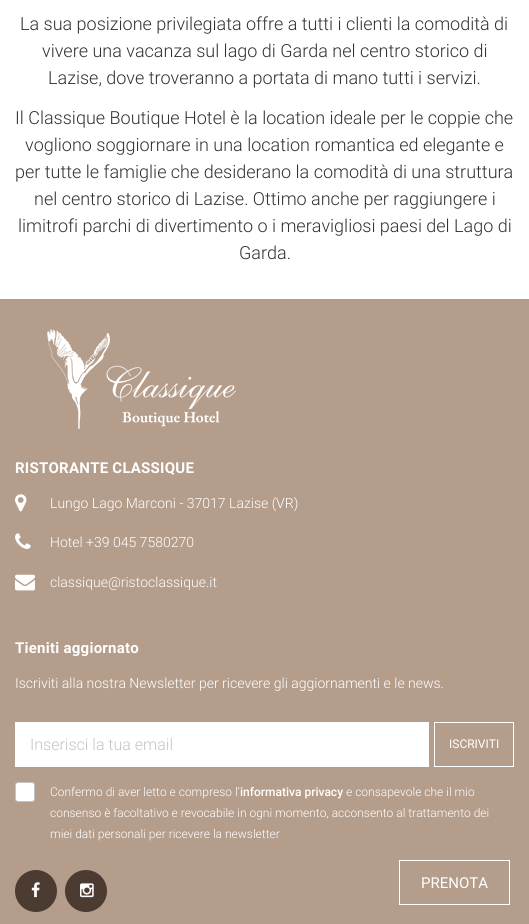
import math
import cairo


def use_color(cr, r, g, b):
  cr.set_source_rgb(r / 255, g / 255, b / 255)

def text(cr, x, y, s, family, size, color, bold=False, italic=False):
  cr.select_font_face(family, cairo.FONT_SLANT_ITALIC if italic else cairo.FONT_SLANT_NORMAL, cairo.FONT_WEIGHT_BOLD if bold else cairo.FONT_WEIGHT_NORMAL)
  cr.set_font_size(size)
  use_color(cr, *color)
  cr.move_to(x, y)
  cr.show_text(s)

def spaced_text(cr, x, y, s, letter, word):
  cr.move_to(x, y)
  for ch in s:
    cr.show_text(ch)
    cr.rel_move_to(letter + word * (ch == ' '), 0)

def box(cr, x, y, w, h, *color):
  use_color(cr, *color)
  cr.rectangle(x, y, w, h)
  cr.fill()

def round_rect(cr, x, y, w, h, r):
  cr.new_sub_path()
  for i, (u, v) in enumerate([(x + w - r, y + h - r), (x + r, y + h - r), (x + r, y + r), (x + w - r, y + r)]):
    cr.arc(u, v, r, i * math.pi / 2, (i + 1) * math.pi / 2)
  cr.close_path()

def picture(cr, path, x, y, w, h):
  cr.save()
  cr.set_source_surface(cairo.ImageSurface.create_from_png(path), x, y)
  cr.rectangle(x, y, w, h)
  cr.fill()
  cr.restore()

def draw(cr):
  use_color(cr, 255, 255, 255)
  cr.paint()
  box(cr, 0, 299, 529, 625, 181, 157, 139)
  picture(cr, "img_01.png", 47, 329, 189, 100)
  picture(cr, "img_02.png", 15, 494, 12, 18)
  picture(cr, "img_03.png", 15, 533, 16, 16)
  picture(cr, "img_04.png", 15, 574, 20, 17)
  box(cr, 15, 722, 414, 45, 255, 255, 255)
  cr.rectangle(434.5, 722.5, 79, 44)
  cr.set_line_width(1)
  cr.stroke()
  round_rect(cr, 15.5, 782.5, 19, 19, 2.5)
  cr.fill_preserve()
  use_color(cr, 196, 196, 196)
  cr.stroke()
  use_color(cr, 76, 59, 48)
  cr.arc(36, 891, 21, 0, 2 * math.pi)
  cr.fill()
  picture(cr, "img_05.png", 31, 882, 9, 16)
  cr.arc(86, 891, 21, 0, 2 * math.pi)
  cr.fill()
  picture(cr, "img_06.png", 80, 883, 14, 15)
  cr.rectangle(399.5, 860.5, 110, 44)
  use_color(cr, 255, 255, 255)
  cr.stroke()
  text(cr, 20, 30, "La sua posizione privilegiata offre a tutti i clienti la comodità di", "Roboto Light", 18, (51, 49, 51))
  text(cr, 42, 57, "vivere una vacanza sul lago di Garda nel centro storico di", "Roboto Light", 18, (51, 49, 51))
  text(cr, 48, 84, "Lazise, dove troveranno a portata di mano tutti i servizi.", "Roboto Light", 18, (51, 49, 51))
  text(cr, 15, 124, "Il Classique Boutique Hotel è la location ideale per le coppie che", "Roboto Light", 18, (51, 49, 51))
  text(cr, 25, 151, "vogliono soggiornare in una location romantica ed elegante e", "Roboto Light", 18, (51, 49, 51))
  text(cr, 15, 178, "per tutte le famiglie che desiderano la comodità di una struttura", "Roboto Light", 18, (51, 49, 51))
  text(cr, 34, 205, "nel centro storico di Lazise. Ottimo anche per raggiungere i", "Roboto Light", 18, (51, 49, 51))
  text(cr, 18, 232, "limitrofi parchi di divertimento o i meravigliosi paesi del Lago di", "Roboto Light", 18, (51, 49, 51))
  text(cr, 239, 259, "Garda.", "Roboto Light", 18, (51, 49, 51))
  cr.select_font_face("Roboto", cairo.FONT_SLANT_NORMAL, cairo.FONT_WEIGHT_BOLD)
  cr.set_font_size(15)
  use_color(cr, 255, 255, 255)
  spaced_text(cr, 15, 473, "RISTORANTE CLASSIQUE", 0.25, 0)
  text(cr, 50, 508, "Lungo Lago Marconi - 37017 Lazise (VR)", "Roboto Light", 14, (255, 255, 255))
  text(cr, 50, 547, "Hotel +39 045 7580270", "Roboto Light", 14, (255, 255, 255))
  text(cr, 50, 587, "classique@ristoclassique.it", "Roboto Light", 14, (255, 255, 255))
  cr.select_font_face("Roboto", cairo.FONT_SLANT_NORMAL, cairo.FONT_WEIGHT_BOLD)
  cr.set_font_size(15)
  spaced_text(cr, 15, 653, "Tieniti aggiornato", 0.25, 0)
  text(cr, 15, 688, "Iscriviti alla nostra Newsletter per ricevere gli aggiornamenti e le news.", "Roboto Light", 14, (255, 255, 255))
  text(cr, 30, 750, "Inserisci la tua email", "Roboto Light", 16, (196, 196, 196))
  text(cr, 449, 748, "ISCRIVITI", "Roboto", 12, (255, 255, 255))
  text(cr, 50, 796, "Confermo di aver letto e compreso l’", "Roboto Light", 12, (255, 255, 255))
  text(cr, 240, 796, "informativa privacy", "Roboto Medium", 12, (255, 255, 255))
  text(cr, 346, 796, "e consapevole che il mio", "Roboto Light", 12, (255, 255, 255))
  text(cr, 50, 817, "consenso è facoltativo e revocabile in ogni momento, acconsento al trattamento dei", "Roboto Light", 12, (255, 255, 255))
  text(cr, 50, 838, "miei dati personali per ricevere la newsletter", "Roboto Light", 12, (255, 255, 255))
  text(cr, 421, 888, "PRENOTA", "Roboto", 15, (255, 255, 255))


surface = cairo.ImageSurface(cairo.FORMAT_RGB24, 529, 924)
cr = cairo.Context(surface)
options = cairo.FontOptions()
options.set_hint_metrics(cairo.HINT_METRICS_OFF)
options.set_hint_style(cairo.HINT_STYLE_NONE)
cr.set_font_options(options)
cr.set_miter_limit(4)
draw(cr)
surface.write_to_png("out.png")
